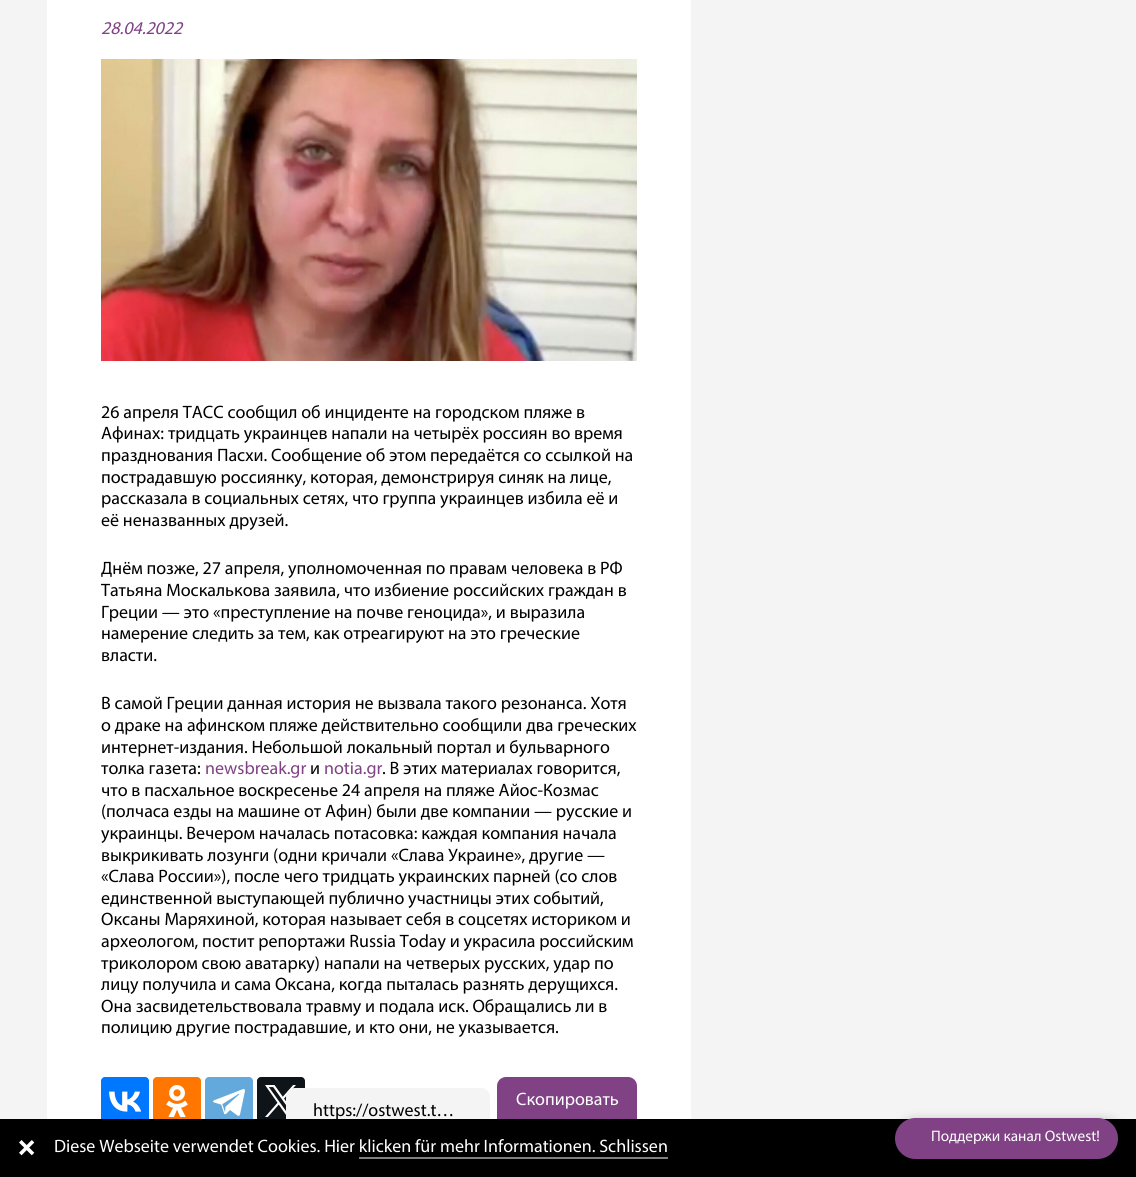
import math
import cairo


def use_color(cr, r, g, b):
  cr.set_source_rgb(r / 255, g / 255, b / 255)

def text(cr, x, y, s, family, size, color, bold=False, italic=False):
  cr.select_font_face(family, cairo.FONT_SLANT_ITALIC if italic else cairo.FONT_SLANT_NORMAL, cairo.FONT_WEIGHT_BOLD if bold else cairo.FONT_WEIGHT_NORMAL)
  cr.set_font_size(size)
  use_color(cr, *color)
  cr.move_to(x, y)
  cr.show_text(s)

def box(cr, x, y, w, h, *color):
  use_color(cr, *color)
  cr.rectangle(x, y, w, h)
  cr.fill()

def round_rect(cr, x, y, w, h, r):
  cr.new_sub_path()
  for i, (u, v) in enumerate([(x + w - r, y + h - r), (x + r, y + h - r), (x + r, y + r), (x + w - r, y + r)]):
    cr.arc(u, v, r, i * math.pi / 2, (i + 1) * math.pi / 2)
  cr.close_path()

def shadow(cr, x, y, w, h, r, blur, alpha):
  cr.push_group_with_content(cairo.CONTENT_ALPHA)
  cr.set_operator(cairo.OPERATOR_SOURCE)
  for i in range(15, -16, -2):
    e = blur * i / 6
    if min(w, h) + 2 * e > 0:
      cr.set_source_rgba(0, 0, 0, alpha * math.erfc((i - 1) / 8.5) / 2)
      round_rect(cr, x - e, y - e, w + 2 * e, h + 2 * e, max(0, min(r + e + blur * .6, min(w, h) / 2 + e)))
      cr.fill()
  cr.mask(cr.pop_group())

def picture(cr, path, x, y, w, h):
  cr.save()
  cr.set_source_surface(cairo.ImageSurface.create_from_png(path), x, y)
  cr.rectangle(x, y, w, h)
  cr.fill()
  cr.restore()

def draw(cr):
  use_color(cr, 244, 244, 244)
  cr.paint()
  box(cr, 47, 0, 644, 1119, 255, 255, 255)
  picture(cr, "img_01.png", 101, 59, 536, 302)
  use_color(cr, 0, 119, 255)
  round_rect(cr, 101, 1077, 48, 48, 4)
  cr.fill()
  picture(cr, "img_02.png", 109, 1091, 33, 21)
  use_color(cr, 255, 119, 0)
  round_rect(cr, 153, 1077, 48, 48, 4)
  cr.fill()
  picture(cr, "img_03.png", 166, 1085, 22, 32)
  use_color(cr, 100, 169, 220)
  round_rect(cr, 205, 1077, 48, 48, 4)
  cr.fill()
  picture(cr, "img_04.png", 213, 1089, 32, 27)
  use_color(cr, 15, 20, 25)
  round_rect(cr, 257, 1077, 48, 48, 4)
  cr.fill()
  picture(cr, "img_05.png", 265, 1085, 31, 32)
  use_color(cr, 128, 66, 132)
  round_rect(cr, 497, 1077, 140, 71, 9)
  cr.fill()
  use_color(cr, 244, 244, 244)
  round_rect(cr, 286, 1088, 204, 49, 9)
  cr.fill()
  box(cr, 0, 1119, 1136, 58, 0, 0, 0)
  use_color(cr, 0, 0, 0)
  shadow(cr, 898, 1122, 223, 41, 20.5, 6, 0.35)
  use_color(cr, 128, 66, 132)
  round_rect(cr, 895, 1118, 223, 41, 20.5)
  cr.fill()
  picture(cr, "img_06.png", 19, 1140, 16, 16)
  box(cr, 359, 1157, 309, 2, 128, 128, 128)
  text(cr, 101, 34, "28.04.2022", "Myriad", 18, (128, 66, 132), italic=True)
  text(cr, 101, 418, "26 апреля ТАСС сообщил об инциденте на городском пляже в", "Myriad", 18, (0, 0, 0))
  text(cr, 101, 439, "Афинах: тридцать украинцев напали на четырёх россиян во время", "Myriad", 18, (0, 0, 0))
  text(cr, 101, 461, "празднования Пасхи. Сообщение об этом передаётся со ссылкой на", "Myriad", 18, (0, 0, 0))
  text(cr, 101, 483, "пострадавшую россиянку, которая, демонстрируя синяк на лице,", "Myriad", 18, (0, 0, 0))
  text(cr, 101, 504, "рассказала в социальных сетях, что группа украинцев избила её и", "Myriad", 18, (0, 0, 0))
  text(cr, 101, 526, "её неназванных друзей.", "Myriad", 18, (0, 0, 0))
  text(cr, 101, 574, "Днём позже, 27 апреля, уполномоченная по правам человека в РФ", "Myriad", 18, (0, 0, 0))
  text(cr, 101, 596, "Татьяна Москалькова заявила, что избиение российских граждан в", "Myriad", 18, (0, 0, 0))
  text(cr, 101, 618, "Греции — это «преступление на почве геноцида», и выразила", "Myriad", 18, (0, 0, 0))
  text(cr, 101, 639, "намерение следить за тем, как отреагируют на это греческие", "Myriad", 18, (0, 0, 0))
  text(cr, 101, 661, "власти.", "Myriad", 18, (0, 0, 0))
  text(cr, 101, 709, "В самой Греции данная история не вызвала такого резонанса. Хотя", "Myriad", 18, (0, 0, 0))
  text(cr, 101, 731, "о драке на афинском пляже действительно сообщили два греческих", "Myriad", 18, (0, 0, 0))
  text(cr, 101, 753, "интернет-издания. Небольшой локальный портал и бульварного", "Myriad", 18, (0, 0, 0))
  text(cr, 101, 774, "толка газета:", "Myriad", 18, (0, 0, 0))
  text(cr, 205, 774, "newsbreak.gr", "Myriad", 18, (128, 66, 132))
  text(cr, 310, 774, "и", "Myriad", 18, (0, 0, 0))
  text(cr, 324, 774, "notia.gr", "Myriad", 18, (128, 66, 132))
  text(cr, 382, 774, ". В этих материалах говорится,", "Myriad", 18, (0, 0, 0))
  text(cr, 101, 796, "что в пасхальное воскресенье 24 апреля на пляже Айос-Козмас", "Myriad", 18, (0, 0, 0))
  text(cr, 101, 817, "(полчаса езды на машине от Афин) были две компании — русские и", "Myriad", 18, (0, 0, 0))
  text(cr, 101, 839, "украинцы. Вечером началась потасовка: каждая компания начала", "Myriad", 18, (0, 0, 0))
  text(cr, 101, 861, "выкрикивать лозунги (одни кричали «Слава Украине», другие —", "Myriad", 18, (0, 0, 0))
  text(cr, 101, 882, "«Слава России»), после чего тридцать украинских парней (со слов", "Myriad", 18, (0, 0, 0))
  text(cr, 101, 904, "единственной выступающей публично участницы этих событий,", "Myriad", 18, (0, 0, 0))
  text(cr, 101, 925, "Оксаны Маряхиной, которая называет себя в соцсетях историком и", "Myriad", 18, (0, 0, 0))
  text(cr, 101, 947, "археологом, постит репортажи Russia Today и украсила российским", "Myriad", 18, (0, 0, 0))
  text(cr, 101, 969, "триколором свою аватарку) напали на четверых русских, удар по", "Myriad", 18, (0, 0, 0))
  text(cr, 101, 990, "лицу получила и сама Оксана, когда пыталась разнять дерущихся.", "Myriad", 18, (0, 0, 0))
  text(cr, 101, 1012, "Она засвидетельствовала травму и подала иск. Обращались ли в", "Myriad", 18, (0, 0, 0))
  text(cr, 101, 1033, "полицию другие пострадавшие, и кто они, не указывается.", "Myriad", 18, (0, 0, 0))
  text(cr, 516, 1105, "Скопировать", "Myriad", 18, (255, 255, 255))
  text(cr, 313, 1116, "https://ostwest.t…", "Myriad", 18, (0, 0, 0))
  text(cr, 931, 1141, "Поддержи канал Ostwest!", "Myriad", 15.25, (255, 255, 255))
  text(cr, 54, 1152, "Diese Webseite verwendet Cookies. Hier klicken für mehr Informationen. Schlissen", "Myriad", 18, (255, 255, 255))


surface = cairo.ImageSurface(cairo.FORMAT_RGB24, 1136, 1177)
cr = cairo.Context(surface)
options = cairo.FontOptions()
options.set_hint_metrics(cairo.HINT_METRICS_OFF)
options.set_hint_style(cairo.HINT_STYLE_NONE)
cr.set_font_options(options)
cr.set_miter_limit(4)
draw(cr)
surface.write_to_png("out.png")
